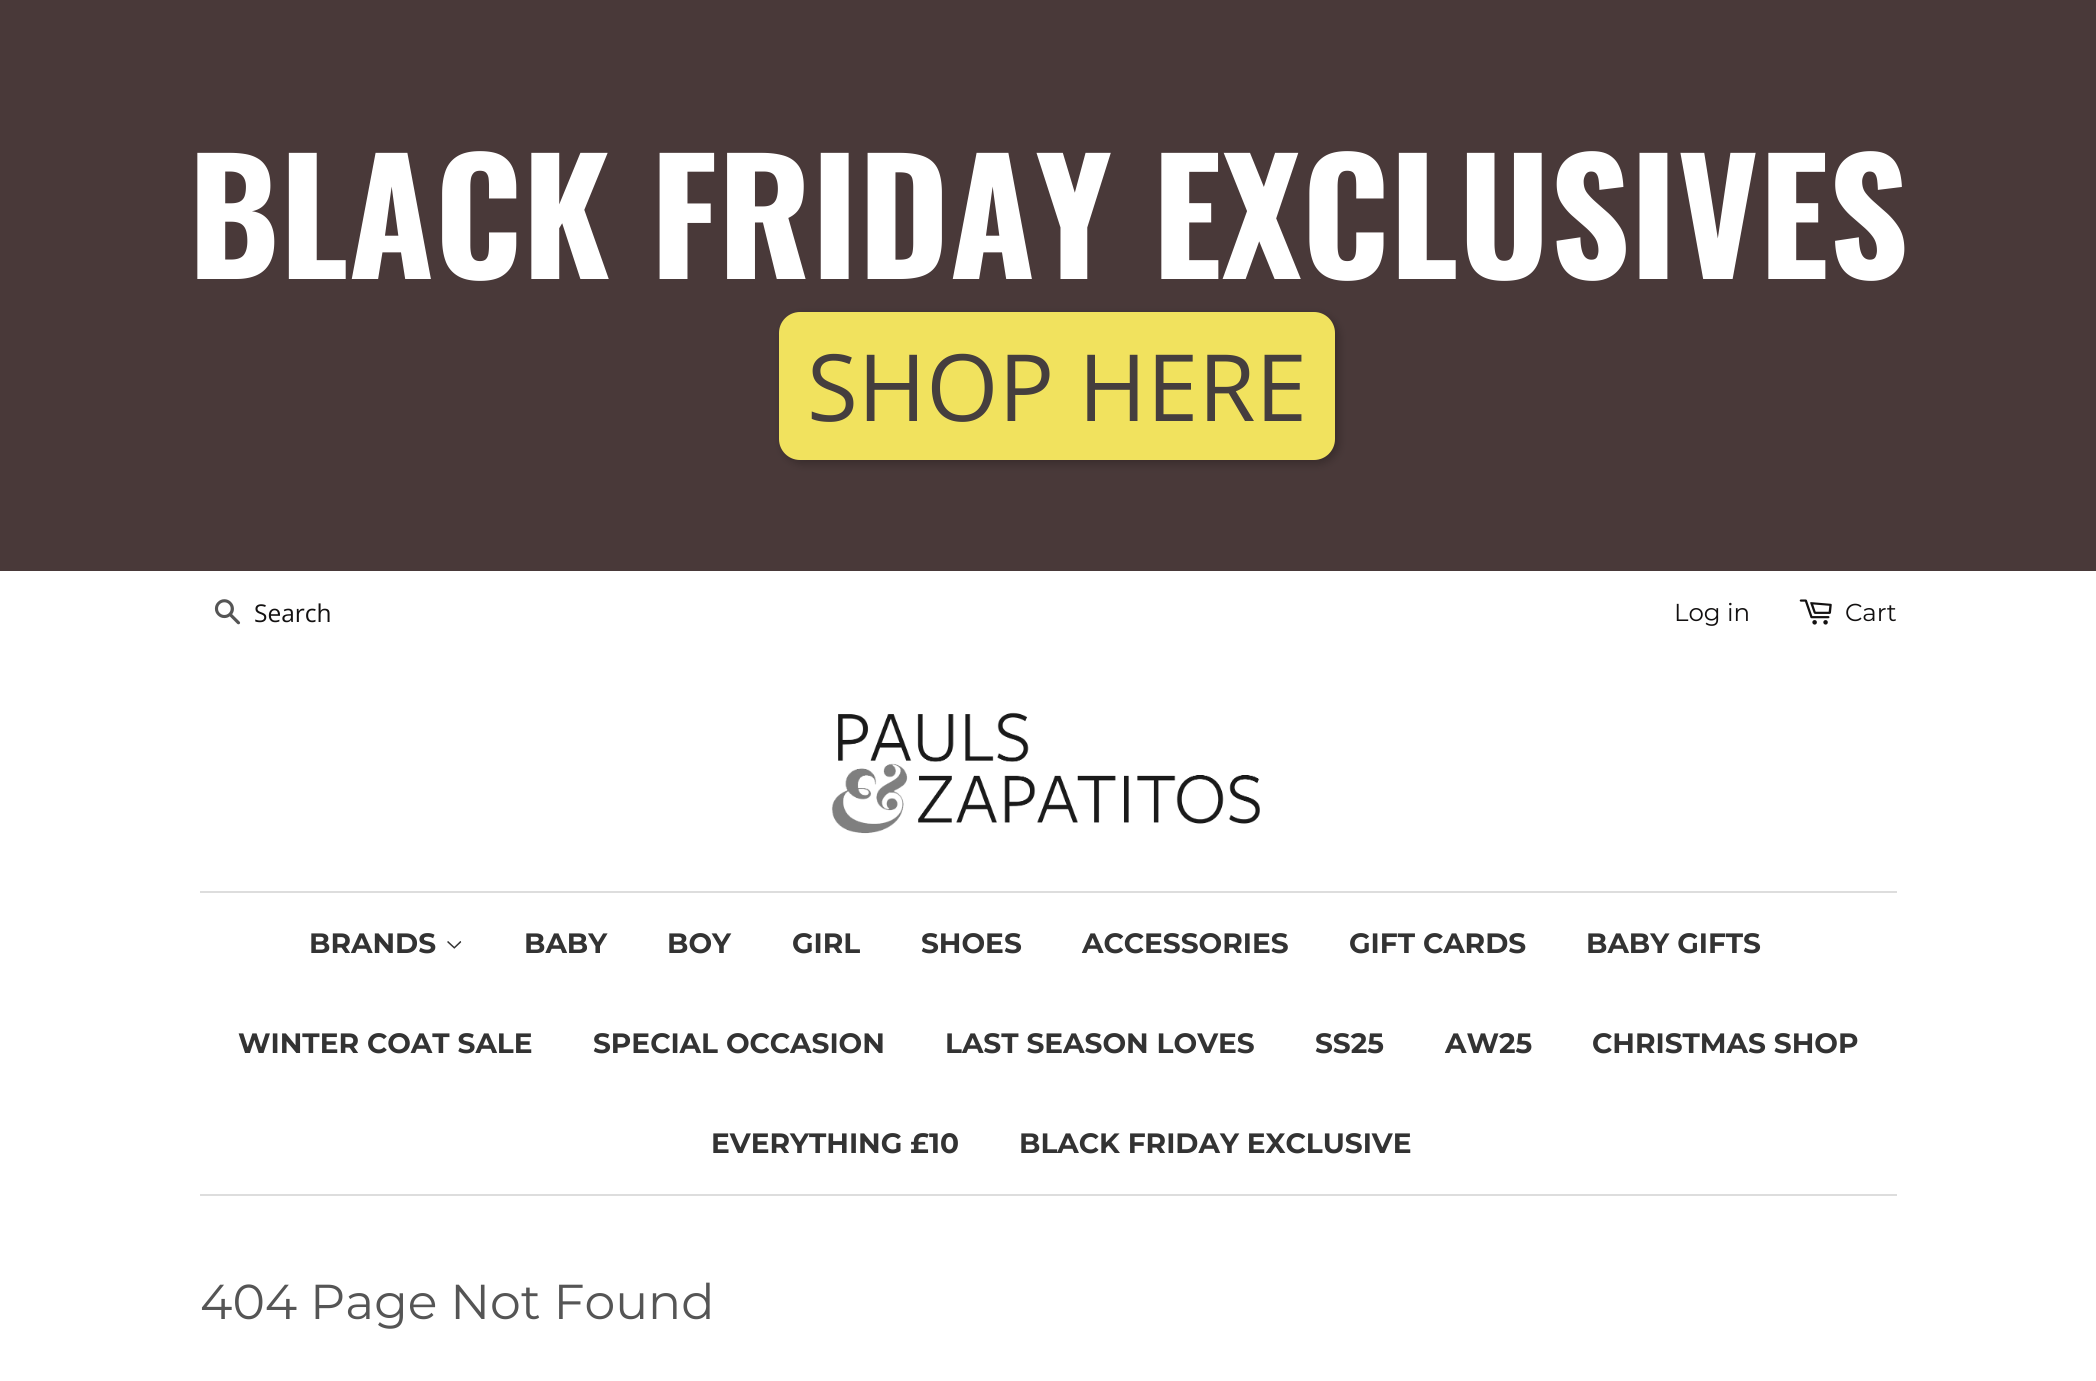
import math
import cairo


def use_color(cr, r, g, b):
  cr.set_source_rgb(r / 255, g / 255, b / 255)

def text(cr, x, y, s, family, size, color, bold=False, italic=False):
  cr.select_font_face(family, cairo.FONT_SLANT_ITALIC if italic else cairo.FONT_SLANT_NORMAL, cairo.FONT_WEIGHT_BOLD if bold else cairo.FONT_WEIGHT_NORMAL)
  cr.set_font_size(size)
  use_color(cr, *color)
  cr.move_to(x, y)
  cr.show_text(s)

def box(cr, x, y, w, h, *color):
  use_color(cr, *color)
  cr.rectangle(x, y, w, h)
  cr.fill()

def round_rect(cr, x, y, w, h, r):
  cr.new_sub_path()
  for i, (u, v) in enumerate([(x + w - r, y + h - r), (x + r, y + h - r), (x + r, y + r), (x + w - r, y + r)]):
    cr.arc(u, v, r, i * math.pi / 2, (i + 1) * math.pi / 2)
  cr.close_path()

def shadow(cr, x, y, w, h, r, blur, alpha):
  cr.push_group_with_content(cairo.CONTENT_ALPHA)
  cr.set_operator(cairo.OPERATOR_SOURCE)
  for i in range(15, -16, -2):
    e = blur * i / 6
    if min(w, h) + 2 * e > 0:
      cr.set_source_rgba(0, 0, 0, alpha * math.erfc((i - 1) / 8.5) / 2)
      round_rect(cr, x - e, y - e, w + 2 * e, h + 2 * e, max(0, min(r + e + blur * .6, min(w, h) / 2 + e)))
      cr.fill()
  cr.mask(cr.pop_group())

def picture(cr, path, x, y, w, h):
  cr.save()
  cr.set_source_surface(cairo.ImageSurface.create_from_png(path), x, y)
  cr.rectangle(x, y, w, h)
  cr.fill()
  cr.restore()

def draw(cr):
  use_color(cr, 255, 255, 255)
  cr.paint()
  box(cr, 0, 0, 2096, 571, 73, 57, 57)
  use_color(cr, 0, 0, 0)
  shadow(cr, 782, 315, 557, 149, 21, 4.5, 0.24)
  use_color(cr, 241, 226, 94)
  round_rect(cr, 779, 312, 556, 148, 21)
  cr.fill()
  picture(cr, "img_01.png", 214, 599, 27, 26)
  picture(cr, "img_02.png", 1799, 599, 33, 26)
  picture(cr, "img_03.png", 831, 712, 429, 122)
  box(cr, 200, 891, 1697, 2, 221, 221, 221)
  box(cr, 200, 1194, 1697, 2, 221, 221, 221)
  picture(cr, "img_04.png", 447, 941, 15, 8)
  text(cr, 188, 279, "BLACK FRIDAY EXCLUSIVES", "Oswald", 155.75, (255, 255, 255), bold=True)
  text(cr, 807, 421, "SHOP HERE", "Open Sans", 92.75, (69, 62, 62))
  text(cr, 254, 622, "Search", "Open Sans", 24.5, (19, 17, 17))
  text(cr, 1674, 621, "Log in", "Montserrat Thin", 24.5, (19, 17, 17))
  text(cr, 1845, 621, "Cart", "Montserrat Thin", 24.5, (19, 17, 17))
  text(cr, 309, 953, "BRANDS", "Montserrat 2 Thin", 28, (51, 51, 51))
  text(cr, 524, 953, "BABY", "Montserrat 2 Thin", 28, (51, 51, 51))
  text(cr, 667, 953, "BOY", "Montserrat 2 Thin", 28, (51, 51, 51))
  text(cr, 792, 953, "GIRL", "Montserrat 2 Thin", 28, (51, 51, 51))
  text(cr, 921, 953, "SHOES", "Montserrat 2 Thin", 28, (51, 51, 51))
  text(cr, 1082, 953, "ACCESSORIES", "Montserrat 2 Thin", 28, (51, 51, 51))
  text(cr, 1349, 953, "GIFT CARDS", "Montserrat 2 Thin", 28, (51, 51, 51))
  text(cr, 1586, 953, "BABY GIFTS", "Montserrat 2 Thin", 28, (51, 51, 51))
  text(cr, 238, 1053, "WINTER COAT SALE", "Montserrat 2 Thin", 28, (51, 51, 51))
  text(cr, 593, 1053, "SPECIAL OCCASION", "Montserrat 2 Thin", 28, (51, 51, 51))
  text(cr, 945, 1053, "LAST SEASON LOVES", "Montserrat 2 Thin", 28, (51, 51, 51))
  text(cr, 1315, 1053, "SS25", "Montserrat 2 Thin", 28, (51, 51, 51))
  text(cr, 1445, 1053, "AW25", "Montserrat 2 Thin", 28, (51, 51, 51))
  text(cr, 1592, 1053, "CHRISTMAS SHOP", "Montserrat 2 Thin", 28, (51, 51, 51))
  text(cr, 711, 1153, "EVERYTHING £10", "Montserrat 2 Thin", 28, (51, 51, 51))
  text(cr, 1019, 1153, "BLACK FRIDAY EXCLUSIVE", "Montserrat 2 Thin", 28, (51, 51, 51))
  text(cr, 200, 1319, "404 Page Not Found", "Montserrat Thin", 49, (85, 85, 85))


surface = cairo.ImageSurface(cairo.FORMAT_RGB24, 2096, 1381)
cr = cairo.Context(surface)
options = cairo.FontOptions()
options.set_hint_metrics(cairo.HINT_METRICS_OFF)
options.set_hint_style(cairo.HINT_STYLE_NONE)
cr.set_font_options(options)
cr.set_miter_limit(4)
draw(cr)
surface.write_to_png("out.png")
